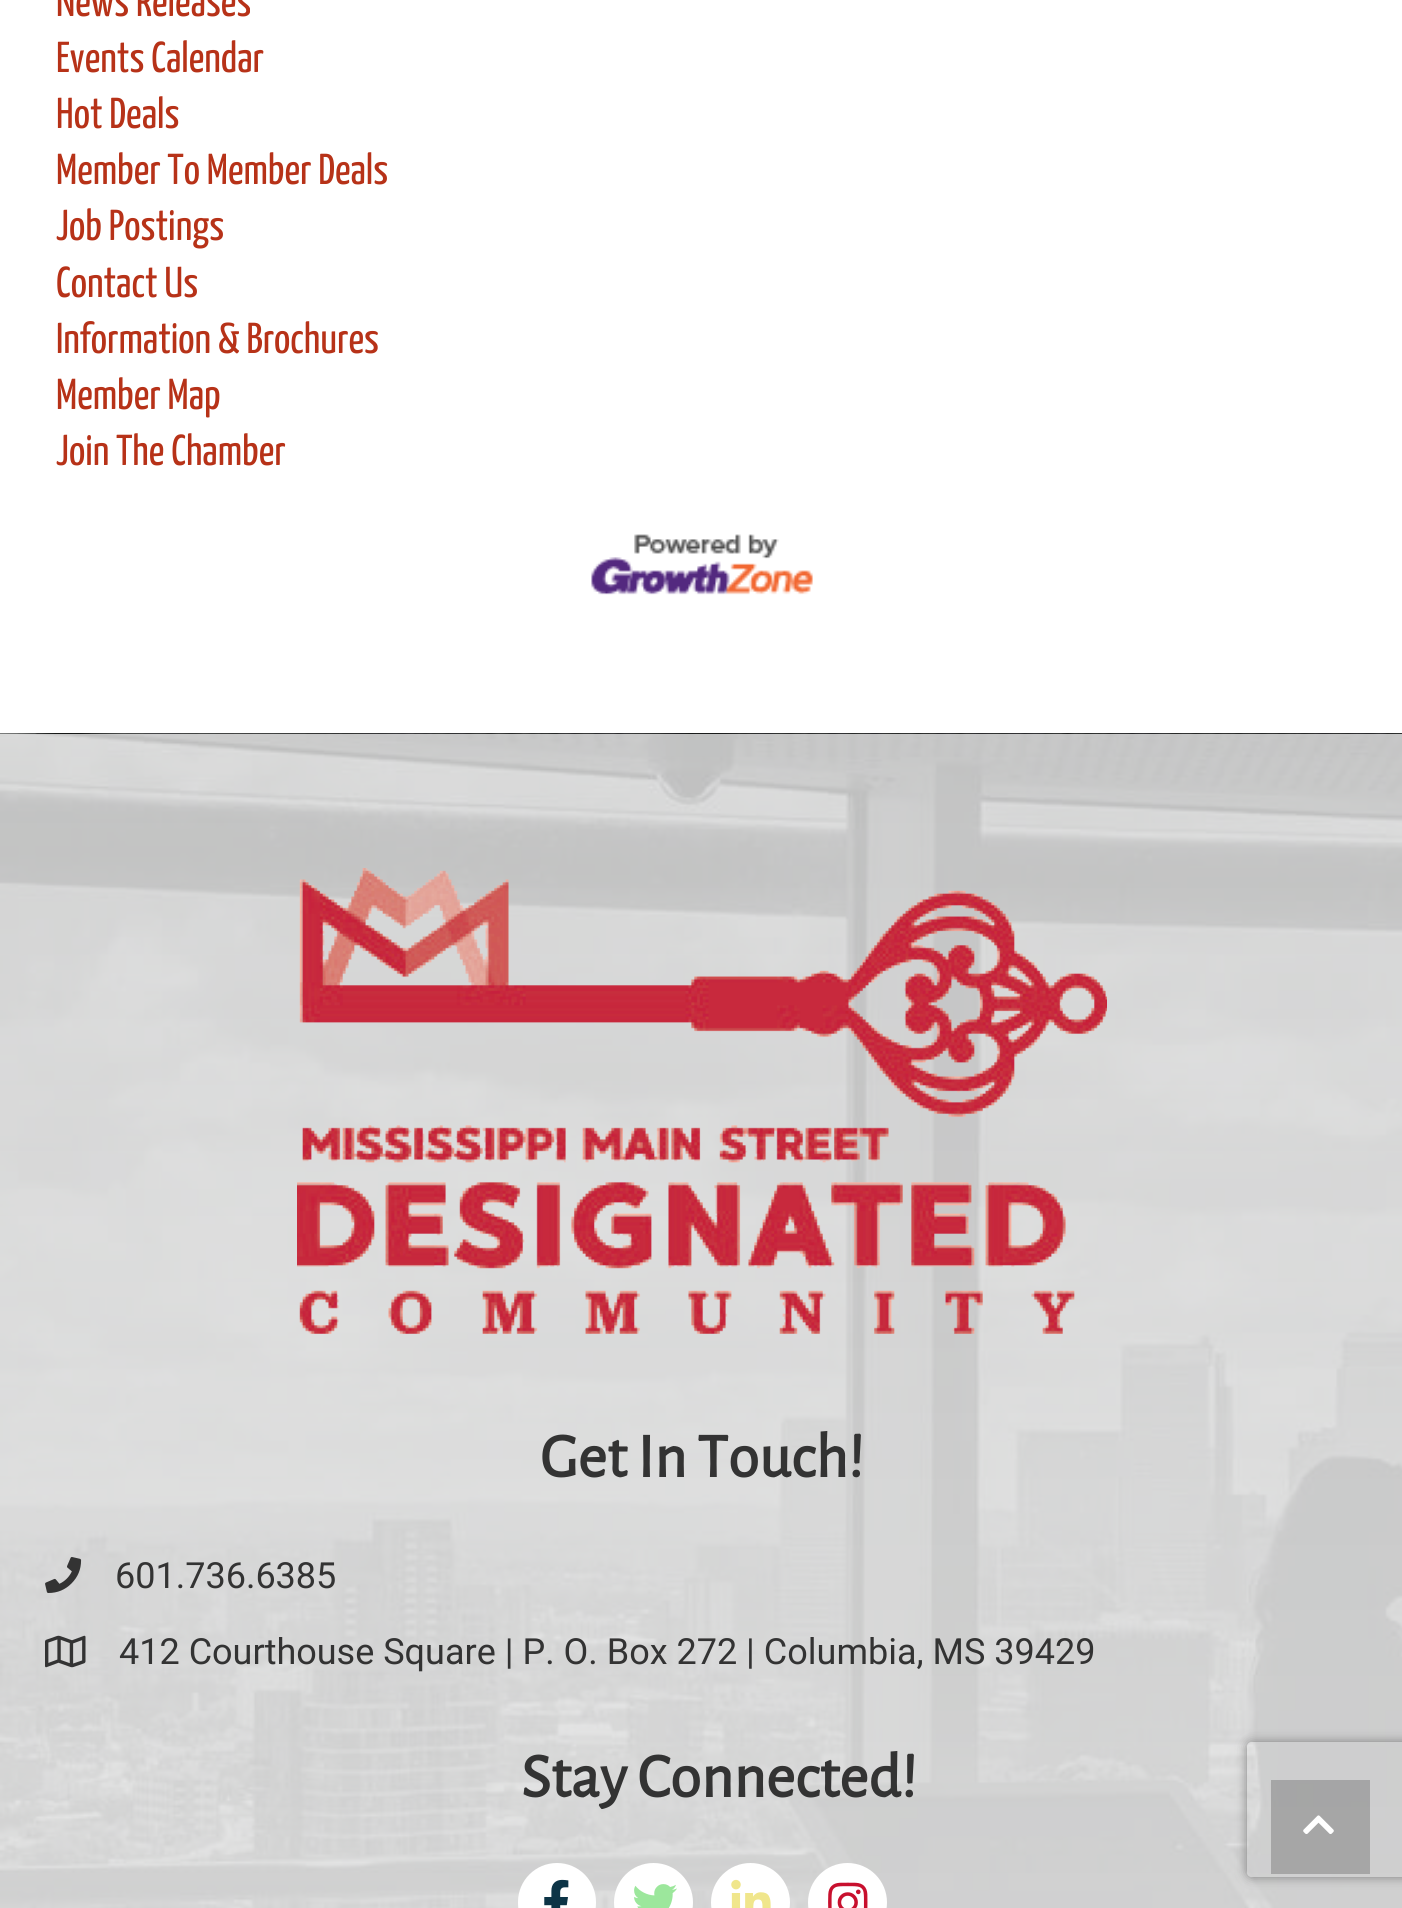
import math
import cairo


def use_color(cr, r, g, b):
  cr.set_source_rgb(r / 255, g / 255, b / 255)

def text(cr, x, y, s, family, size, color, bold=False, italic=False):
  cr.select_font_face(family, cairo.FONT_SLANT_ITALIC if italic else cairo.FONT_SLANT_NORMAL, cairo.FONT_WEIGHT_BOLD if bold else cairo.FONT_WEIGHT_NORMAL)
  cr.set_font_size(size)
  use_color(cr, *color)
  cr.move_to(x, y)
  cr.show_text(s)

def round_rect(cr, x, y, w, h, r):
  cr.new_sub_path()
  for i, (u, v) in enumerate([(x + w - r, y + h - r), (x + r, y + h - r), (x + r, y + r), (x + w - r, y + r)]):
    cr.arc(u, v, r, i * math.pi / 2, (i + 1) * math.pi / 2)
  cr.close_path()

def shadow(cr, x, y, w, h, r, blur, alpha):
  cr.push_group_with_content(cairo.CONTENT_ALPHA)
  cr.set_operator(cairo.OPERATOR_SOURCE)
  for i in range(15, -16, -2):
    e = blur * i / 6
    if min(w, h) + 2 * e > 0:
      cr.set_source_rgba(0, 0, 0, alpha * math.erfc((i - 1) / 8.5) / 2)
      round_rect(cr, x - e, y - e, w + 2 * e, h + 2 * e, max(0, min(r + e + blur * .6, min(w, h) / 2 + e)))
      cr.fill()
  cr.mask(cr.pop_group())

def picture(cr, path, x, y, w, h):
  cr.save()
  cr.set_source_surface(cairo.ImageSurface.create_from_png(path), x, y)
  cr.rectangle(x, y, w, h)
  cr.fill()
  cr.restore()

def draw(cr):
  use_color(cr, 255, 255, 255)
  cr.paint()
  picture(cr, "img_01.png", 591, 534, 222, 61)
  picture(cr, "img_02.png", 0, 733, 1402, 1175)
  picture(cr, "img_03.png", 297, 868, 810, 466)
  picture(cr, "img_04.png", 45, 1557, 37, 36)
  picture(cr, "img_05.png", 45, 1635, 41, 33)
  use_color(cr, 255, 255, 255)
  round_rect(cr, 518, 1863, 78, 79, 39)
  cr.fill()
  picture(cr, "img_06.png", 544, 1879, 25, 29)
  cr.arc(653.5, 1902.5, 39.5, 0, 2 * math.pi)
  cr.fill()
  picture(cr, "img_07.png", 634, 1884, 43, 24)
  cr.arc(750.5, 1902.5, 39.5, 0, 2 * math.pi)
  cr.fill()
  picture(cr, "img_08.png", 731, 1879, 40, 29)
  cr.arc(847.5, 1902.5, 39.5, 0, 2 * math.pi)
  cr.fill()
  picture(cr, "img_09.png", 828, 1882, 40, 26)
  cr.save()
  cr.set_fill_rule(cairo.FILL_RULE_EVEN_ODD)
  cr.new_path()
  cr.move_to(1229, 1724)
  cr.line_to(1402, 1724)
  cr.line_to(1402, 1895)
  cr.line_to(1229, 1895)
  cr.close_path()
  cr.move_to(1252, 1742)
  cr.line_to(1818, 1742)
  cr.curve_to(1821, 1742, 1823, 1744, 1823, 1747)
  cr.line_to(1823, 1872)
  cr.curve_to(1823, 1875, 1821, 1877, 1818, 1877)
  cr.line_to(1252, 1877)
  cr.curve_to(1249, 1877, 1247, 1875, 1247, 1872)
  cr.line_to(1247, 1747)
  cr.curve_to(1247, 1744, 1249, 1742, 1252, 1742)
  cr.close_path()
  cr.clip()
  use_color(cr, 128, 128, 128)
  shadow(cr, 1247, 1742, 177, 135, 5, 5.5, 1)
  cr.restore()
  cr.set_source_rgba(0, 0, 0, 0.2)
  cr.rectangle(1271, 1780, 99, 94)
  cr.fill()
  picture(cr, "img_10.png", 1303, 1815, 31, 19)
  text(cr, 56, 16, "News Releases", "Yanone Kaffeesatz", 43.25, (183, 50, 24))
  text(cr, 56, 72, "Events Calendar", "Yanone Kaffeesatz", 43.25, (183, 50, 24))
  text(cr, 56, 128, "Hot Deals", "Yanone Kaffeesatz", 43.25, (183, 50, 24))
  text(cr, 56, 184, "Member To Member Deals", "Yanone Kaffeesatz", 43.25, (183, 50, 24))
  text(cr, 56, 240, "Job Postings", "Yanone Kaffeesatz", 43.25, (183, 50, 24))
  text(cr, 56, 297, "Contact Us", "Yanone Kaffeesatz", 43.25, (183, 50, 24))
  text(cr, 56, 353, "Information & Brochures", "Yanone Kaffeesatz", 43.25, (183, 50, 24))
  text(cr, 56, 409, "Member Map", "Yanone Kaffeesatz", 43.25, (183, 50, 24))
  text(cr, 56, 465, "Join The Chamber", "Yanone Kaffeesatz", 43.25, (183, 50, 24))
  text(cr, 540, 1477, "Get In Touch!", "Alegreya Sans", 63, (51, 51, 51), bold=True)
  text(cr, 115, 1588, "601.736.6385", "Roboto", 36, (51, 51, 51))
  text(cr, 119, 1664, "412 Courthouse Square | P. O. Box 272 | Columbia, MS 39429", "Roboto", 36, (51, 51, 51))
  text(cr, 521, 1797, "Stay Connected!", "Alegreya Sans", 63, (51, 51, 51), bold=True)


surface = cairo.ImageSurface(cairo.FORMAT_RGB24, 1402, 1908)
cr = cairo.Context(surface)
options = cairo.FontOptions()
options.set_hint_metrics(cairo.HINT_METRICS_OFF)
options.set_hint_style(cairo.HINT_STYLE_NONE)
cr.set_font_options(options)
cr.set_miter_limit(4)
draw(cr)
surface.write_to_png("out.png")
